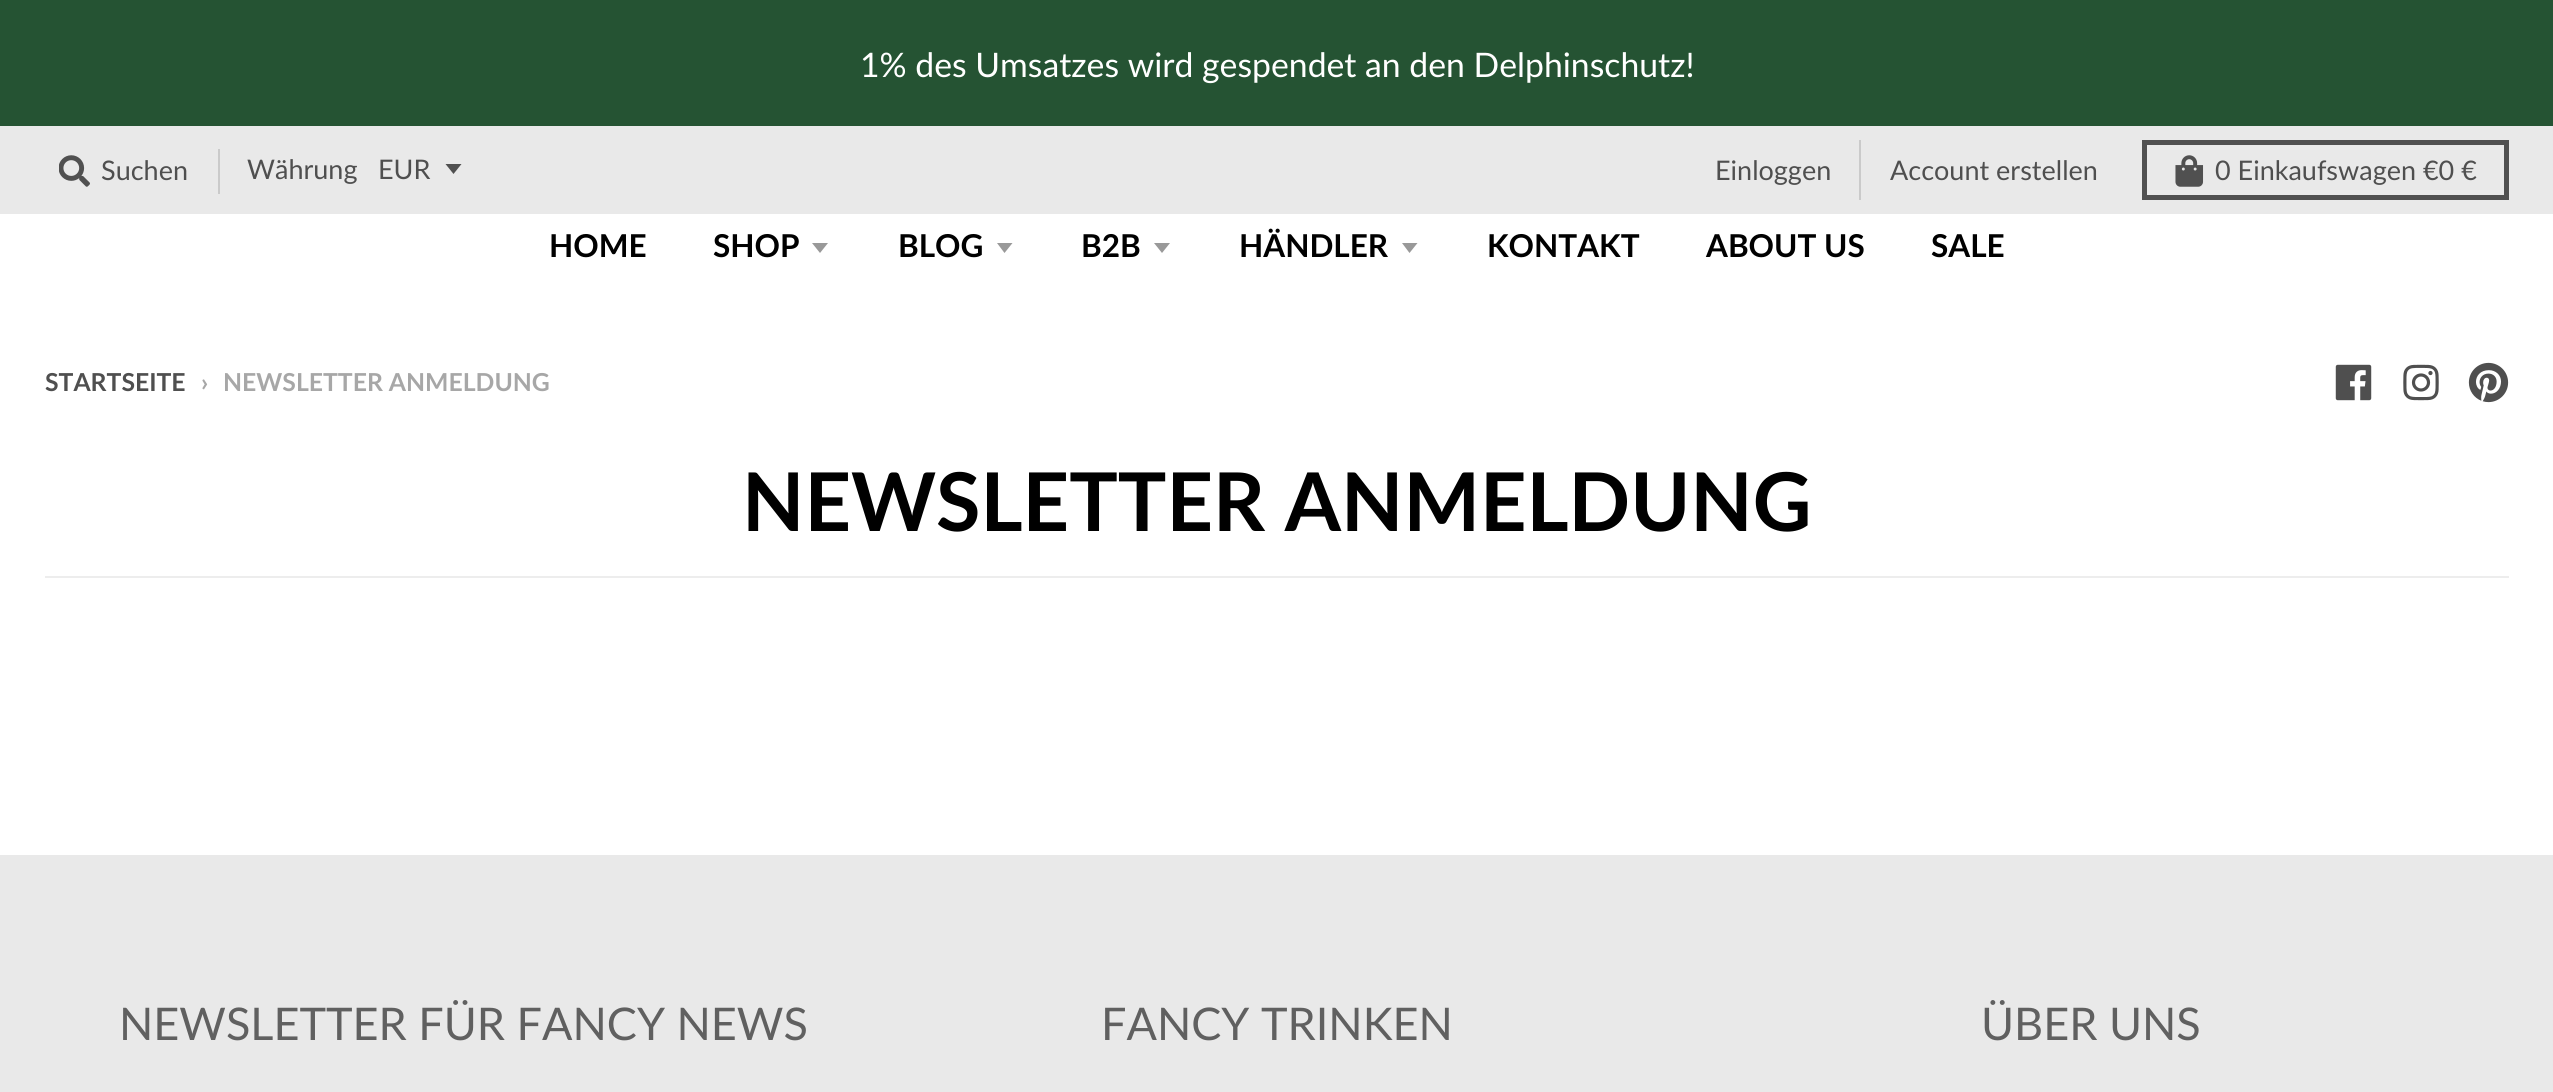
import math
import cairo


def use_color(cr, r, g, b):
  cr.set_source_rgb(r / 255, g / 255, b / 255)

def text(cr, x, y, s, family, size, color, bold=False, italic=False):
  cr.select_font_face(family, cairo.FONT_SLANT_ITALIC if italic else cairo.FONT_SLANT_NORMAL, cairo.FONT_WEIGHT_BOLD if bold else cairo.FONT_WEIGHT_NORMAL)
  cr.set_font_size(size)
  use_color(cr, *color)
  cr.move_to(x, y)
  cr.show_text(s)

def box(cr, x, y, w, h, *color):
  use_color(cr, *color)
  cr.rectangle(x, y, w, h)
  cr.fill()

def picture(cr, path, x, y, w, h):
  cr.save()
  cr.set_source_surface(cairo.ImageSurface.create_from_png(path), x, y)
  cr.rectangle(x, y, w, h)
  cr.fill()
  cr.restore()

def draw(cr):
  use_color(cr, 255, 255, 255)
  cr.paint()
  box(cr, 0, 0, 2553, 126, 37, 83, 51)
  box(cr, 0, 126, 2553, 88, 233, 233, 233)
  picture(cr, "img_01.png", 59, 155, 31, 32)
  box(cr, 218, 149, 2, 45, 202, 202, 202)
  use_color(cr, 80, 80, 80)
  cr.new_path()
  cr.move_to(445.5, 164)
  cr.line_to(453.5, 174)
  cr.line_to(461.5, 164)
  cr.close_path()
  cr.fill()
  box(cr, 1859, 140, 2, 60, 202, 202, 202)
  cr.rectangle(2144.5, 142.5, 362, 55)
  use_color(cr, 80, 80, 80)
  cr.set_line_width(5)
  cr.stroke()
  picture(cr, "img_02.png", 2175, 155, 29, 32)
  use_color(cr, 153, 153, 153)
  cr.new_path()
  cr.move_to(812, 243)
  cr.line_to(820, 253)
  cr.line_to(828, 243)
  cr.close_path()
  cr.fill()
  cr.new_path()
  cr.move_to(997, 243)
  cr.line_to(1004.5, 253)
  cr.line_to(1012.5, 243)
  cr.close_path()
  cr.fill()
  cr.new_path()
  cr.move_to(1154, 243)
  cr.line_to(1162, 253)
  cr.line_to(1170, 243)
  cr.close_path()
  cr.fill()
  cr.new_path()
  cr.move_to(1402, 243)
  cr.line_to(1409.5, 253)
  cr.line_to(1417.5, 243)
  cr.close_path()
  cr.fill()
  picture(cr, "img_03.png", 2335, 364, 37, 37)
  picture(cr, "img_04.png", 2403, 364, 36, 37)
  picture(cr, "img_05.png", 2468, 362, 41, 41)
  box(cr, 45, 576, 2464, 2, 237, 237, 237)
  box(cr, 0, 855, 2553, 237, 233, 233, 233)
  text(cr, 860, 77, "1% des Umsatzes wird gespendet an den Delphinschutz!", "Lato", 33.75, (255, 255, 255))
  text(cr, 101, 180, "Suchen", "Lato", 27, (79, 79, 79))
  text(cr, 247, 179, "Währung", "Lato", 27, (79, 79, 79))
  text(cr, 378, 179, "EUR", "Lato", 27, (79, 79, 79))
  text(cr, 1715, 180, "Einloggen", "Lato", 27, (79, 79, 79))
  text(cr, 1890, 180, "Account erstellen", "Lato", 27, (79, 79, 79))
  text(cr, 2215, 180, "0 Einkaufswagen €0 €", "Lato", 27, (79, 79, 79))
  text(cr, 549, 257, "HOME", "Lato", 31.5, (0, 0, 0), bold=True)
  text(cr, 713, 257, "SHOP", "Lato", 31.5, (0, 0, 0), bold=True)
  text(cr, 898, 257, "BLOG", "Lato", 31.5, (0, 0, 0), bold=True)
  text(cr, 1081, 257, "B2B", "Lato", 31.5, (0, 0, 0), bold=True)
  text(cr, 1239, 257, "HÄNDLER", "Lato", 31.5, (0, 0, 0), bold=True)
  text(cr, 1487, 257, "KONTAKT", "Lato", 31.5, (0, 0, 0), bold=True)
  text(cr, 1706, 257, "ABOUT US", "Lato", 31.5, (0, 0, 0), bold=True)
  text(cr, 1931, 257, "SALE", "Lato", 31.5, (0, 0, 0), bold=True)
  text(cr, 45, 391, "STARTSEITE", "Lato", 24.75, (79, 79, 79), bold=True)
  text(cr, 201, 391, "›", "Lato", 24.75, (167, 167, 167), bold=True)
  text(cr, 223, 391, "NEWSLETTER ANMELDUNG", "Lato", 24.75, (167, 167, 167), bold=True)
  text(cr, 742, 531, "NEWSLETTER ANMELDUNG", "Lato", 81, (0, 0, 0), bold=True)
  text(cr, 119, 1040, "NEWSLETTER FÜR FANCY NEWS", "Lato", 45, (96, 96, 96))
  text(cr, 1101, 1040, "FANCY TRINKEN", "Lato", 45, (96, 96, 96))
  text(cr, 1981, 1040, "ÜBER UNS", "Lato", 45, (96, 96, 96))


surface = cairo.ImageSurface(cairo.FORMAT_RGB24, 2553, 1092)
cr = cairo.Context(surface)
options = cairo.FontOptions()
options.set_hint_metrics(cairo.HINT_METRICS_OFF)
options.set_hint_style(cairo.HINT_STYLE_NONE)
cr.set_font_options(options)
cr.set_miter_limit(4)
draw(cr)
surface.write_to_png("out.png")
